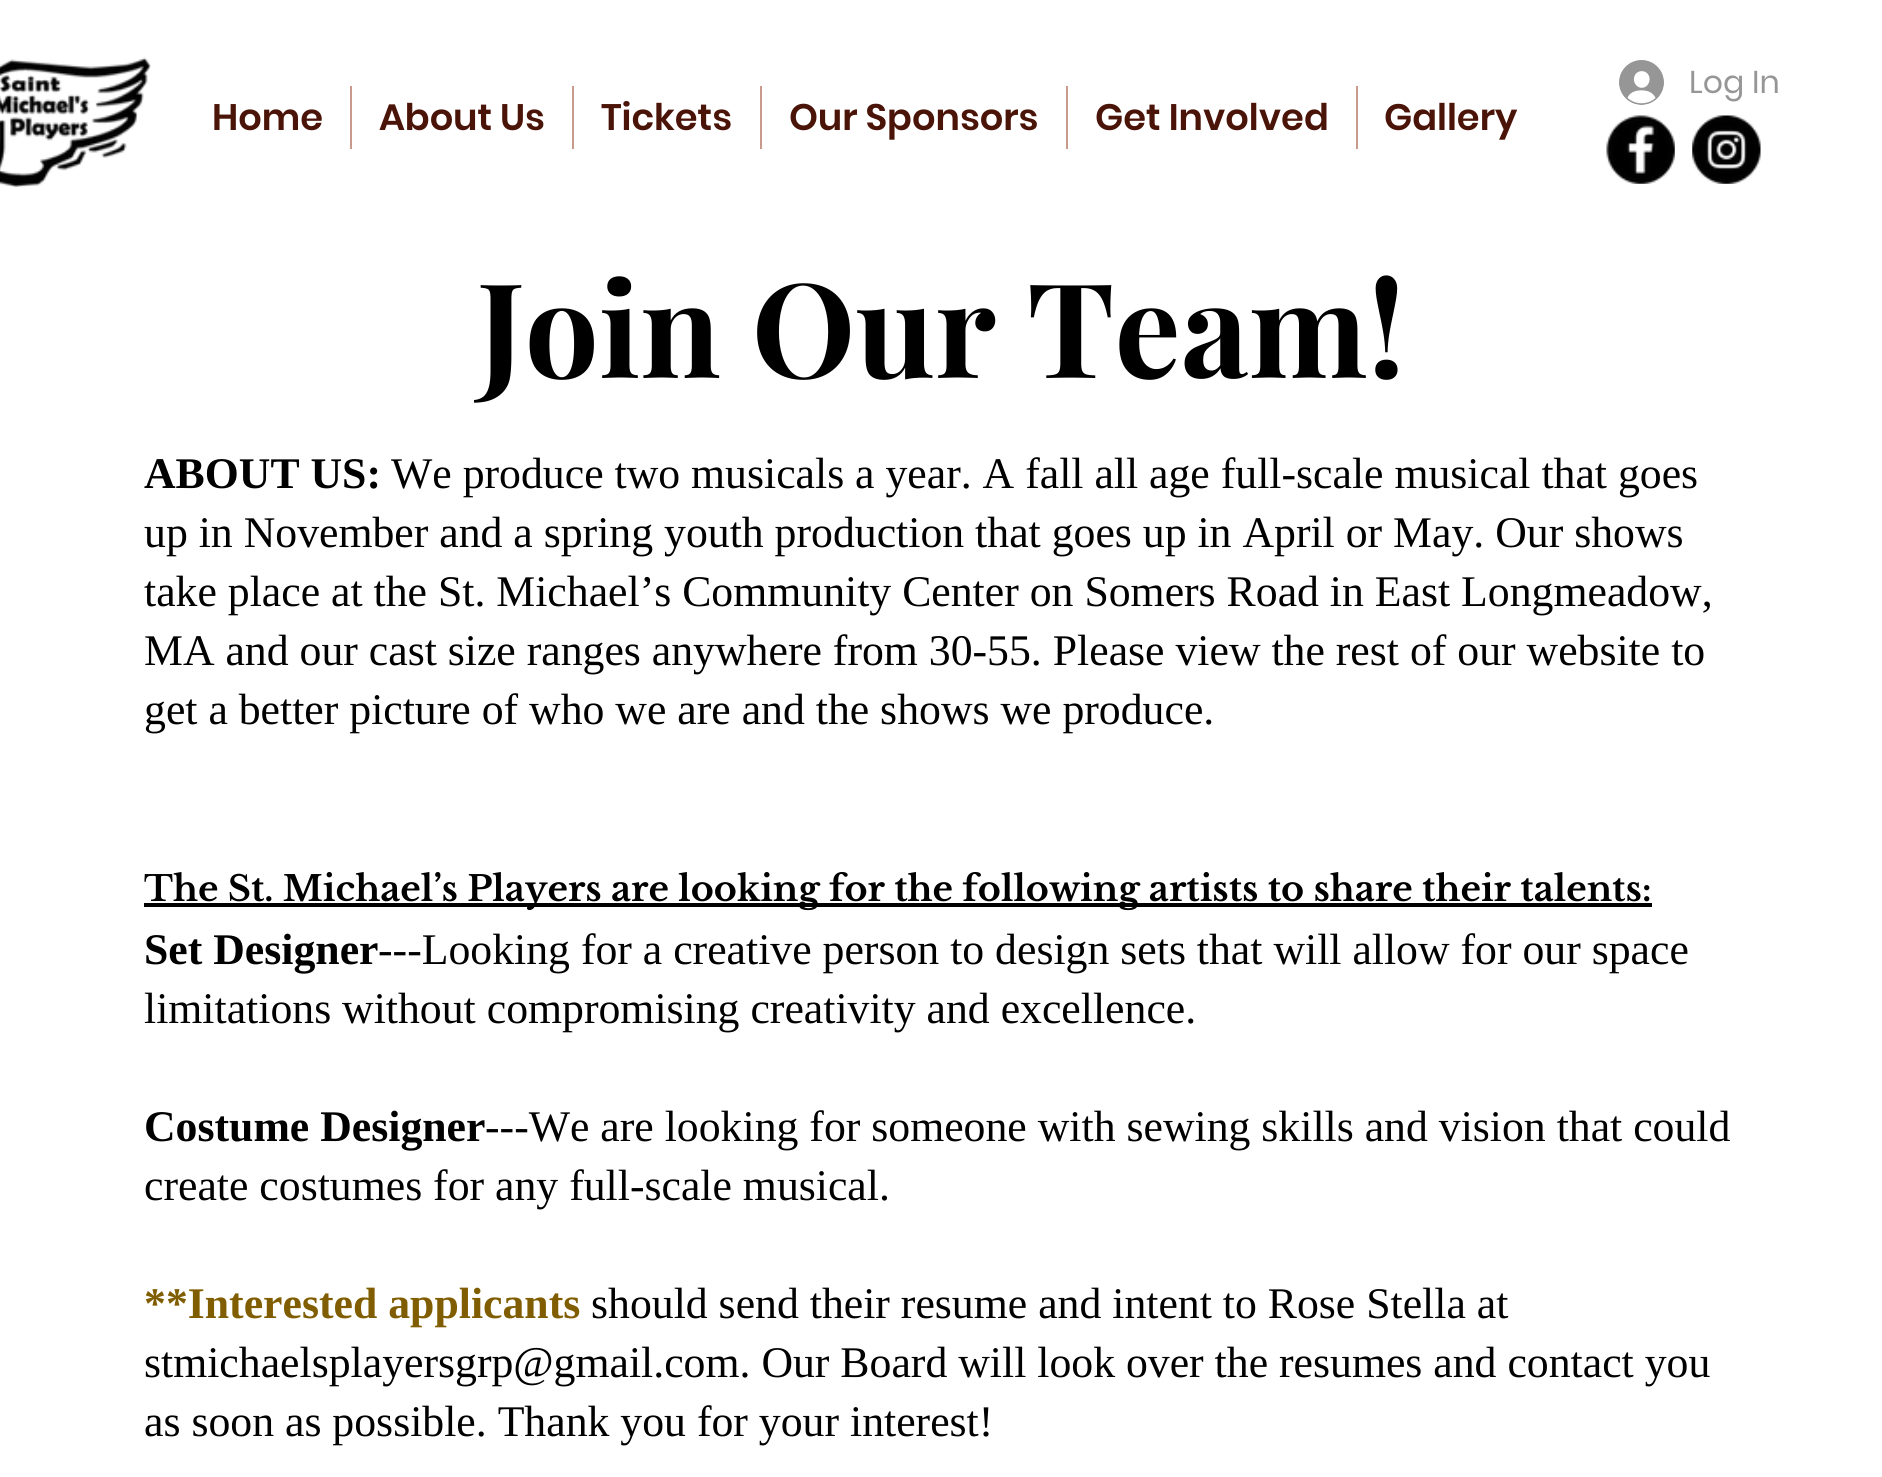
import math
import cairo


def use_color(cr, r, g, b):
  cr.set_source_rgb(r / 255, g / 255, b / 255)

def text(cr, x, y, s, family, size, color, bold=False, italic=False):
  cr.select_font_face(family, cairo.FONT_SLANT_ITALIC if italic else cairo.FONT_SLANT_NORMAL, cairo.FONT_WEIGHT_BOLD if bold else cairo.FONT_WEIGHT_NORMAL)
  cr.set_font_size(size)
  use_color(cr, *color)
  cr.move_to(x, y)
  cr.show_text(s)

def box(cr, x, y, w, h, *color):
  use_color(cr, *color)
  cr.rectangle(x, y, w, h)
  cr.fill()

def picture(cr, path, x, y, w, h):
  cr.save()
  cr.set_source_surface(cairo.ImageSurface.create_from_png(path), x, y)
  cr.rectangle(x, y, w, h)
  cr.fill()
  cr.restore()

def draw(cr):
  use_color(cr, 255, 255, 255)
  cr.paint()
  picture(cr, "img_01.png", 0, 57, 151, 130)
  picture(cr, "img_02.png", 1619, 60, 45, 45)
  box(cr, 350, 86, 2, 63, 201, 153, 141)
  box(cr, 572, 86, 2, 63, 201, 153, 141)
  box(cr, 760, 86, 2, 63, 201, 153, 141)
  box(cr, 1066, 86, 2, 63, 201, 153, 141)
  box(cr, 1356, 86, 2, 63, 201, 153, 141)
  picture(cr, "img_03.png", 1606, 115, 69, 69)
  picture(cr, "img_04.png", 1692, 115, 69, 69)
  box(cr, 144, 903, 1508, 4, 0, 0, 0)
  text(cr, 1689, 93, "Log In", "Poppins", 31.5, (150, 150, 150))
  text(cr, 212, 130, "Home", "Poppins SemiBold", 36.75, (74, 20, 8))
  text(cr, 379, 130, "About Us", "Poppins SemiBold", 36.75, (74, 20, 8))
  text(cr, 601, 130, "Tickets", "Poppins SemiBold", 36.75, (74, 20, 8))
  text(cr, 789, 130, "Our Sponsors", "Poppins SemiBold", 36.75, (74, 20, 8))
  text(cr, 1095, 130, "Get Involved", "Poppins SemiBold", 36.75, (74, 20, 8))
  text(cr, 1384, 130, "Gallery", "Poppins SemiBold", 36.75, (74, 20, 8))
  text(cr, 477, 378, "Join Our Team!", "Playfair Display", 131.25, (0, 0, 0), bold=True)
  text(cr, 144, 488, "ABOUT US:", "Liberation Serif", 43.75, (0, 0, 0), bold=True)
  text(cr, 391, 488, "We produce two musicals a year. A fall all age full-scale musical that goes", "Liberation Serif", 43.75, (0, 0, 0))
  text(cr, 144, 547, "up in November and a spring youth production that goes up in April or May. Our shows", "Liberation Serif", 43.75, (0, 0, 0))
  text(cr, 144, 606, "take place at the St. Michael’s Community Center on Somers Road in East Longmeadow,", "Liberation Serif", 43.75, (0, 0, 0))
  text(cr, 144, 665, "MA and our cast size ranges anywhere from 30-55. Please view the rest of our website to", "Liberation Serif", 43.75, (0, 0, 0))
  text(cr, 144, 724, "get a better picture of who we are and the shows we produce.", "Liberation Serif", 43.75, (0, 0, 0))
  text(cr, 144, 901, "The St. Michael’s Players are looking for the following artists to share their talents:", "Libre Baskerville", 35, (0, 0, 0), bold=True)
  text(cr, 144, 964, "Set Designer", "Liberation Serif", 43.75, (0, 0, 0), bold=True)
  text(cr, 378, 964, "---Looking for a creative person to design sets that will allow for our space", "Liberation Serif", 43.75, (0, 0, 0))
  text(cr, 144, 1023, "limitations without compromising creativity and excellence.", "Liberation Serif", 43.75, (0, 0, 0))
  text(cr, 144, 1141, "Costume Designer", "Liberation Serif", 43.75, (0, 0, 0), bold=True)
  text(cr, 485, 1141, "---We are looking for someone with sewing skills and vision that could", "Liberation Serif", 43.75, (0, 0, 0))
  text(cr, 144, 1200, "create costumes for any full-scale musical.", "Liberation Serif", 43.75, (0, 0, 0))
  text(cr, 144, 1318, "**Interested applicants", "Liberation Serif", 43.75, (127, 93, 0), bold=True)
  text(cr, 591, 1318, "should send their resume and intent to Rose Stella at", "Liberation Serif", 43.75, (0, 0, 0))
  text(cr, 144, 1377, "stmichaelsplayersgrp@gmail.com. Our Board will look over the resumes and contact you", "Liberation Serif", 43.75, (0, 0, 0))
  text(cr, 144, 1436, "as soon as possible. Thank you for your interest!", "Liberation Serif", 43.75, (0, 0, 0))


surface = cairo.ImageSurface(cairo.FORMAT_RGB24, 1882, 1477)
cr = cairo.Context(surface)
options = cairo.FontOptions()
options.set_hint_metrics(cairo.HINT_METRICS_OFF)
options.set_hint_style(cairo.HINT_STYLE_NONE)
cr.set_font_options(options)
cr.set_miter_limit(4)
draw(cr)
surface.write_to_png("out.png")
